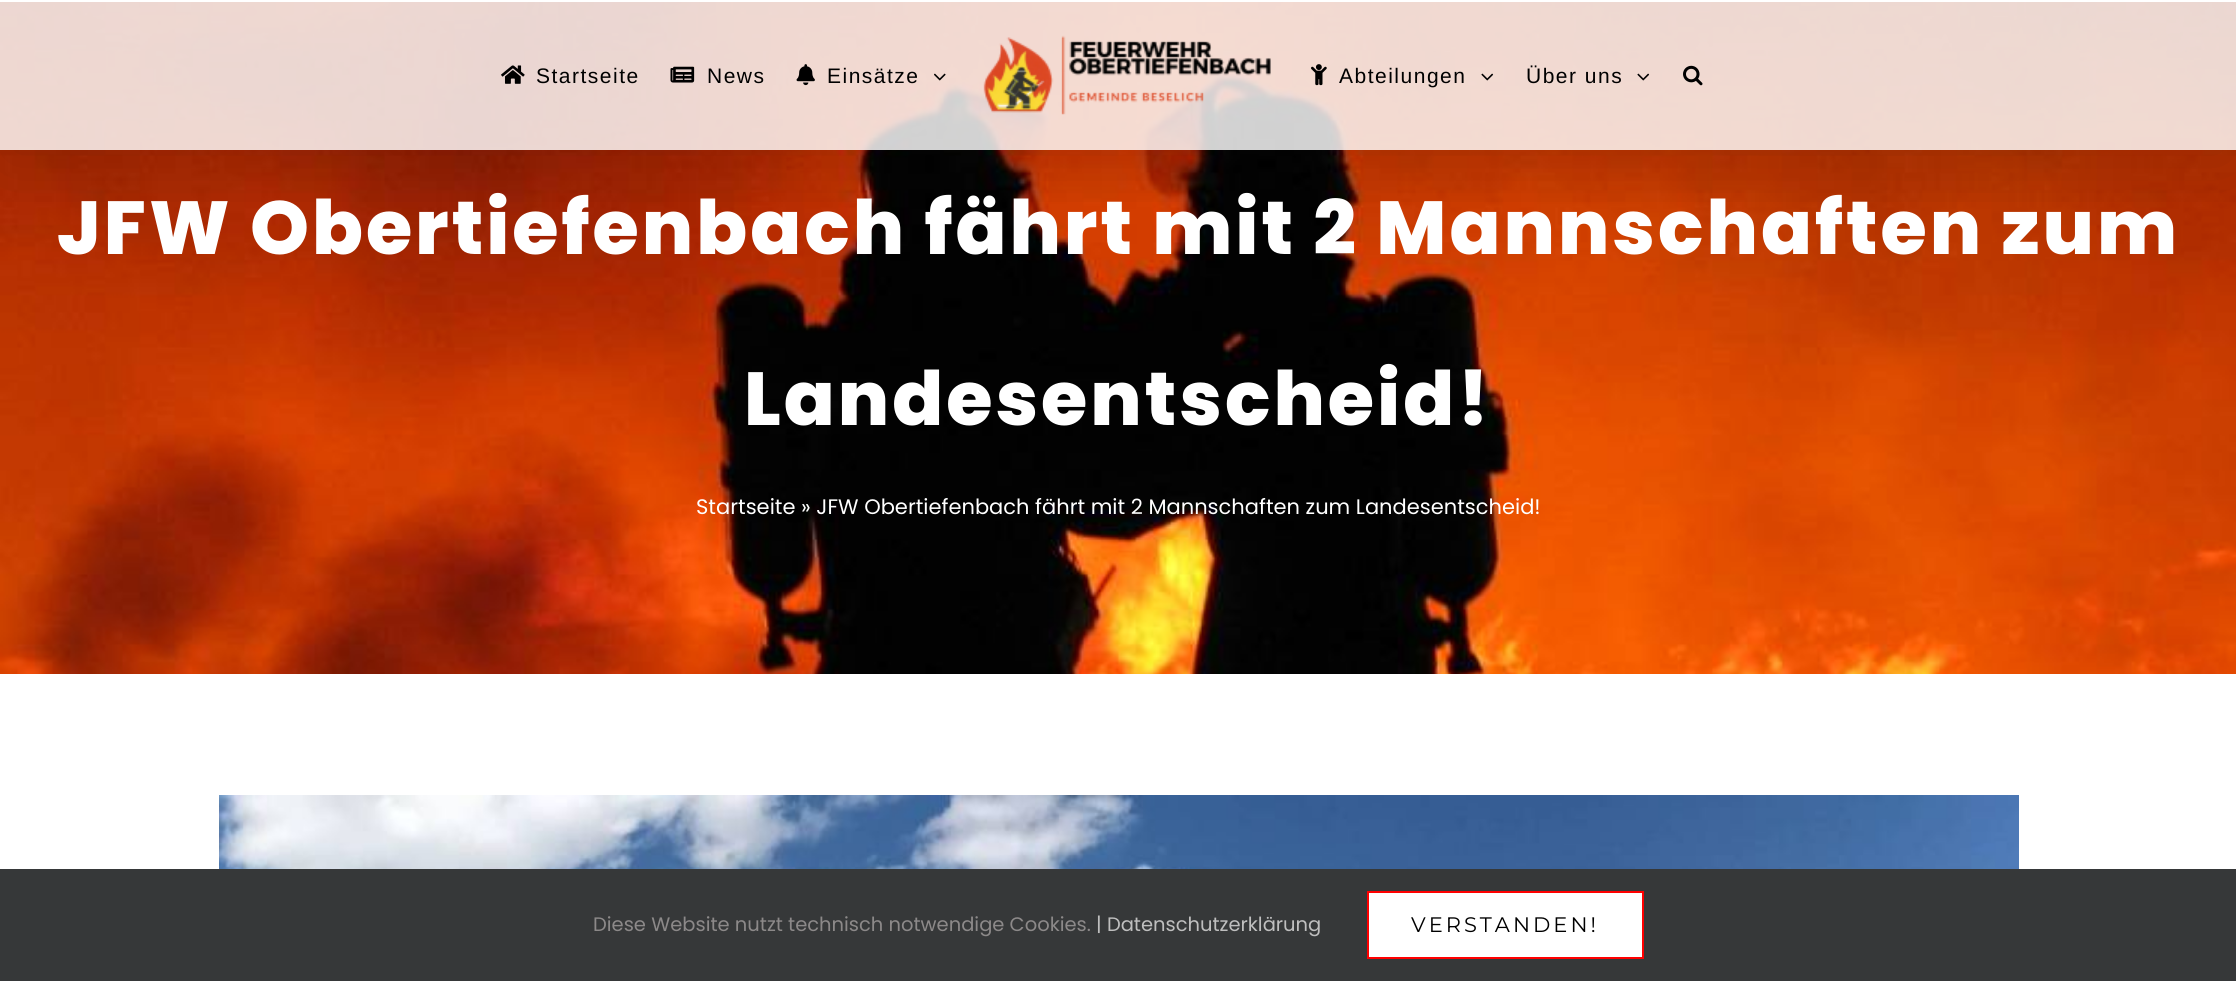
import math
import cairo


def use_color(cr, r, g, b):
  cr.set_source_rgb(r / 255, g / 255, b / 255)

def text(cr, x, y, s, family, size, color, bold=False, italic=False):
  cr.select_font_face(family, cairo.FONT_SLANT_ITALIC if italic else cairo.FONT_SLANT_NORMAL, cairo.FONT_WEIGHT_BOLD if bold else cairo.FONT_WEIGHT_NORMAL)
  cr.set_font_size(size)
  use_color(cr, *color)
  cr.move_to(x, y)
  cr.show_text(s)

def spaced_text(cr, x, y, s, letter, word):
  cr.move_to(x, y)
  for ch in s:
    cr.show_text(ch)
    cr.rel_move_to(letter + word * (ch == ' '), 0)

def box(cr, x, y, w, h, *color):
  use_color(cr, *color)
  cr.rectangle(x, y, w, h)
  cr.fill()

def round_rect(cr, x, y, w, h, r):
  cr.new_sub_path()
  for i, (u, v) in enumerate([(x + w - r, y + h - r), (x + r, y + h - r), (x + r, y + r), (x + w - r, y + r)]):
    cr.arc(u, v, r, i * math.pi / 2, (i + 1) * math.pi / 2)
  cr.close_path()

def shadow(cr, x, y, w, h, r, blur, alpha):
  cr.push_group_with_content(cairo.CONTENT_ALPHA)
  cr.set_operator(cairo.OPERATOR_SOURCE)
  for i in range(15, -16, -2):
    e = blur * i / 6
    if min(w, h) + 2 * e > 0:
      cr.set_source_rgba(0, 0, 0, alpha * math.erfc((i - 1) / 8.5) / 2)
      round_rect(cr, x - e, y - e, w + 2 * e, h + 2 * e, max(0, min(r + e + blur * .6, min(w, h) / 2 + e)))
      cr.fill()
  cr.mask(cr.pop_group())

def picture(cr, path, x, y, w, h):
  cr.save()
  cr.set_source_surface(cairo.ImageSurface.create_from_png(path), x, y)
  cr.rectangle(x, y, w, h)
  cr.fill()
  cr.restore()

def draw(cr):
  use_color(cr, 255, 255, 255)
  cr.paint()
  picture(cr, "img_10.png", 0, 2, 2236, 672)
  cr.save()
  cr.rectangle(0, 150, 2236, 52)
  cr.clip()
  use_color(cr, 0, 0, 0)
  shadow(cr, 3, 18, 2231, 144, 0, 37.5, 0.14)
  cr.restore()
  cr.set_source_rgba(1, 1, 1, 0.82)
  cr.rectangle(0, 2, 2236, 148)
  cr.fill()
  picture(cr, "img_01.png", 501, 65, 24, 19)
  picture(cr, "img_02.png", 670, 66, 25, 17)
  picture(cr, "img_03.png", 796, 64, 19, 22)
  picture(cr, "img_04.png", 934, 73, 12, 8)
  picture(cr, "img_05.png", 983, 35, 288, 80)
  picture(cr, "img_06.png", 1311, 64, 16, 22)
  picture(cr, "img_07.png", 1481, 73, 13, 8)
  picture(cr, "img_08.png", 1637, 73, 13, 8)
  picture(cr, "img_09.png", 1683, 65, 20, 21)
  picture(cr, "img_11.png", 219, 795, 1800, 74)
  box(cr, 0, 869, 2236, 112, 54, 56, 57)
  use_color(cr, 255, 255, 255)
  cr.rectangle(1368, 892, 275, 66)
  cr.fill_preserve()
  use_color(cr, 255, 0, 0)
  cr.stroke()
  cr.select_font_face("Liberation Sans")
  cr.set_font_size(21)
  use_color(cr, 0, 0, 0)
  spaced_text(cr, 536, 83, "Startseite", 1.5, 0)
  spaced_text(cr, 707, 83, "News", 1.5, 0)
  spaced_text(cr, 827, 83, "Einsätze", 1.5, 0)
  spaced_text(cr, 1339, 83, "Abteilungen", 1.5, 0)
  spaced_text(cr, 1526, 83, "Über uns", 1.5, 0)
  cr.select_font_face("Poppins ExtraBold")
  cr.set_font_size(75)
  use_color(cr, 255, 255, 255)
  spaced_text(cr, 57, 254, "JFW Obertiefenbach fährt mit 2 Mannschaften zum", 3, 0)
  spaced_text(cr, 744, 425, "Landesentscheid!", 3, 0)
  text(cr, 696, 514, "Startseite » JFW Obertiefenbach fährt mit 2 Mannschaften zum Landesentscheid!", "Poppins", 21, (255, 255, 255))
  text(cr, 593, 931, "Diese Website nutzt technisch notwendige Cookies.", "Poppins", 19.5, (140, 137, 137))
  text(cr, 1096, 931, "| Datenschutzerklärung", "Poppins", 19.5, (191, 191, 191))
  cr.select_font_face("Montserrat Thin")
  cr.set_font_size(21)
  use_color(cr, 0, 0, 0)
  spaced_text(cr, 1411, 932, "VERSTANDEN!", 3, 0)


surface = cairo.ImageSurface(cairo.FORMAT_RGB24, 2236, 981)
cr = cairo.Context(surface)
options = cairo.FontOptions()
options.set_hint_metrics(cairo.HINT_METRICS_OFF)
options.set_hint_style(cairo.HINT_STYLE_NONE)
cr.set_font_options(options)
cr.set_miter_limit(4)
draw(cr)
surface.write_to_png("out.png")
